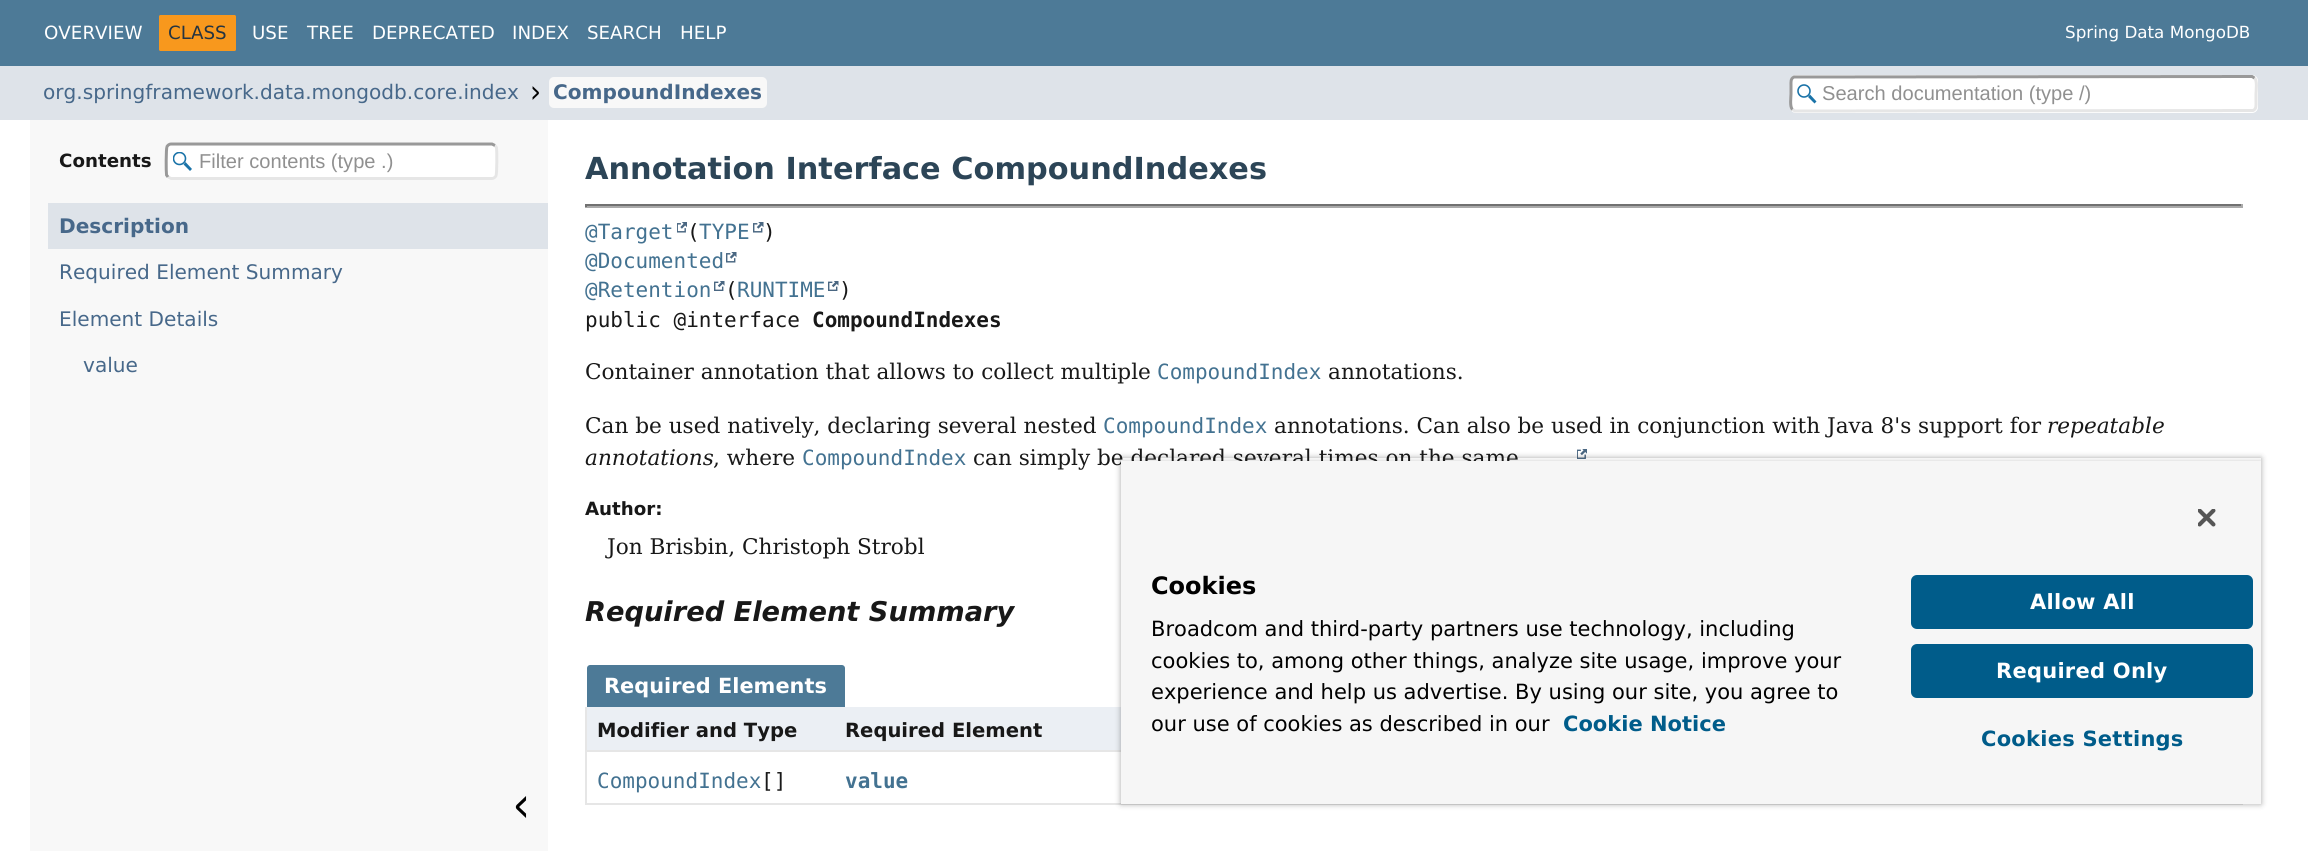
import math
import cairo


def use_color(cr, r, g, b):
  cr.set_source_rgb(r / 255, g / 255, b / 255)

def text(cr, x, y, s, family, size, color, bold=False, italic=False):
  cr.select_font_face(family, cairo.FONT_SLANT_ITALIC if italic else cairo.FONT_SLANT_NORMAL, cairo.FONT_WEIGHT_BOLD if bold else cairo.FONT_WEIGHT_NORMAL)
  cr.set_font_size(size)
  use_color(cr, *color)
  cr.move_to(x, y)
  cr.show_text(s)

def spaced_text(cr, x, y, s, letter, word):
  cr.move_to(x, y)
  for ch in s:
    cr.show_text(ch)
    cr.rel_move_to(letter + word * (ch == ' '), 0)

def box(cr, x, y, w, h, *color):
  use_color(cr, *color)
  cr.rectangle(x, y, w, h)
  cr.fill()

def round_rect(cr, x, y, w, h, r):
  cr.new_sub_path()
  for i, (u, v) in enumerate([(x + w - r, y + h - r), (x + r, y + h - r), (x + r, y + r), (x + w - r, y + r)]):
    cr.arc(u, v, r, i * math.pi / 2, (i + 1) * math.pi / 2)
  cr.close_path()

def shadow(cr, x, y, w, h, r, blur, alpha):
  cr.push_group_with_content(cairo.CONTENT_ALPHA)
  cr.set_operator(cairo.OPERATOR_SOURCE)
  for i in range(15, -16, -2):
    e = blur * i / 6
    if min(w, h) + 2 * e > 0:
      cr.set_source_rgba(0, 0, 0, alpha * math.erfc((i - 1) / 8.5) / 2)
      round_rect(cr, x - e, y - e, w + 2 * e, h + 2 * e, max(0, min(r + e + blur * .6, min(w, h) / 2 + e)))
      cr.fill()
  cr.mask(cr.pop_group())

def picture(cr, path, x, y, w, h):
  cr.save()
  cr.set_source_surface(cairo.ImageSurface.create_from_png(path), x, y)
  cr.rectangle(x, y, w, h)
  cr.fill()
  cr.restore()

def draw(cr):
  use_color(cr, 255, 255, 255)
  cr.paint()
  box(cr, 0, 0, 2308, 66, 77, 122, 151)
  use_color(cr, 248, 152, 29)
  round_rect(cr, 159, 15, 77, 36, 1.5)
  cr.fill()
  box(cr, 0, 66, 2308, 54, 222, 227, 233)
  picture(cr, "img_01.png", 532, 86, 7, 14)
  use_color(cr, 248, 248, 248)
  round_rect(cr, 549, 77, 218, 31, 5)
  cr.fill()
  use_color(cr, 255, 255, 255)
  round_rect(cr, 1790, 75, 468, 38, 6)
  cr.fill()
  use_color(cr, 26, 115, 168)
  cr.new_path()
  cr.move_to(1810, 94.5)
  cr.line_to(1808, 97)
  cr.line_to(1814.5, 103.5)
  cr.line_to(1816.5, 101.5)
  cr.close_path()
  cr.fill()
  cr.arc(1804, 91, 6, 0, 2 * math.pi)
  cr.set_line_width(1.6)
  cr.stroke()
  cr.new_path()
  cr.move_to(2254.5, 78)
  cr.curve_to(2257.5, 80.5, 2256, 90.5, 2256, 94)
  cr.line_to(2256, 102)
  cr.curve_to(2256, 105.5, 2256.5, 109, 2253, 110.5)
  cr.line_to(1795, 111)
  cr.line_to(1792.5, 109.5)
  use_color(cr, 230, 230, 230)
  cr.set_line_width(3)
  cr.stroke()
  cr.new_path()
  cr.move_to(1792.5, 109.5)
  cr.curve_to(1789.5, 107, 1791, 97, 1791, 94)
  cr.line_to(1791, 85)
  cr.curve_to(1791, 82, 1790.5, 78.5, 1794, 77)
  cr.line_to(2252, 76.5)
  cr.line_to(2254.5, 78)
  use_color(cr, 153, 153, 153)
  cr.stroke()
  box(cr, 30, 120, 518, 731, 248, 248, 248)
  use_color(cr, 255, 255, 255)
  round_rect(cr, 165, 143, 333, 37, 6)
  cr.fill()
  use_color(cr, 26, 115, 168)
  cr.new_path()
  cr.move_to(185.5, 162)
  cr.line_to(183.5, 164.5)
  cr.line_to(190, 171)
  cr.line_to(192, 169)
  cr.close_path()
  cr.fill()
  cr.save()
  cr.rectangle(173, 152, 19, 19)
  cr.clip()
  cr.arc(179.5, 158.5, 6, 0, 2 * math.pi)
  cr.set_line_width(1.6)
  cr.stroke()
  cr.restore()
  cr.new_path()
  cr.move_to(495, 145.5)
  cr.line_to(496.5, 147.5)
  cr.curve_to(497, 150.5, 497, 174, 496, 176)
  cr.curve_to(495, 177.5, 493.5, 178.5, 492, 178.5)
  cr.line_to(171, 178.5)
  cr.line_to(168, 177)
  use_color(cr, 230, 230, 230)
  cr.stroke()
  cr.new_path()
  cr.move_to(168, 177)
  cr.line_to(166.5, 175)
  cr.curve_to(166, 172, 166, 148.5, 167, 146.5)
  cr.curve_to(168, 145, 169.5, 144, 171, 144)
  cr.line_to(492, 144)
  cr.line_to(495, 145.5)
  use_color(cr, 153, 153, 153)
  cr.stroke()
  box(cr, 48, 203, 500, 46, 222, 227, 233)
  picture(cr, "img_02.png", 515, 796, 12, 22)
  box(cr, 585, 204, 1658, 2, 113, 113, 113)
  box(cr, 2241, 204, 2, 3, 170, 170, 170)
  box(cr, 585, 206, 1658, 2, 170, 170, 170)
  box(cr, 585, 204, 2, 3, 113, 113, 113)
  picture(cr, "img_03.png", 677, 222, 10, 11)
  picture(cr, "img_04.png", 753, 222, 11, 11)
  picture(cr, "img_04.png", 726, 252, 11, 11)
  picture(cr, "img_05.png", 714, 281, 11, 10)
  picture(cr, "img_05.png", 828, 281, 11, 10)
  picture(cr, "img_06.png", 1577, 449, 10, 10)
  use_color(cr, 77, 122, 151)
  cr.new_path()
  cr.move_to(590, 665)
  cr.line_to(842, 665)
  cr.curve_to(843.5, 665, 845, 666.5, 845, 668)
  cr.line_to(845, 707)
  cr.line_to(587, 707)
  cr.line_to(587, 668)
  cr.curve_to(587, 666.5, 588.5, 665, 590, 665)
  cr.close_path()
  cr.fill()
  box(cr, 585, 803, 1658, 2, 230, 230, 230)
  box(cr, 585, 707, 2, 97, 230, 230, 230)
  box(cr, 587, 707, 534, 43, 235, 239, 244)
  box(cr, 587, 750, 534, 2, 230, 230, 230)
  cr.save()
  cr.set_fill_rule(cairo.FILL_RULE_EVEN_ODD)
  cr.new_path()
  cr.move_to(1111, 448)
  cr.line_to(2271, 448)
  cr.line_to(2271, 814)
  cr.line_to(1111, 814)
  cr.close_path()
  cr.move_to(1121, 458)
  cr.line_to(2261, 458)
  cr.line_to(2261, 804)
  cr.line_to(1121, 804)
  cr.close_path()
  cr.clip()
  use_color(cr, 0, 0, 0)
  shadow(cr, 1121, 458, 1140, 346, 0, 3, 0.35)
  cr.restore()
  cr.save()
  cr.rectangle(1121, 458, 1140, 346)
  cr.clip()
  use_color(cr, 0, 0, 0)
  shadow(cr, 1121, 461, 1140, 343, 0, 3, 0.2)
  cr.restore()
  text(cr, 44, 39, "OVERVIEW", "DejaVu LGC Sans", 18.25, (255, 255, 255))
  text(cr, 168, 39, "CLASS", "DejaVu LGC Sans", 18.25, (37, 52, 65))
  text(cr, 252, 39, "USE", "DejaVu LGC Sans", 18.25, (255, 255, 255))
  text(cr, 307, 39, "TREE", "DejaVu LGC Sans", 18.25, (255, 255, 255))
  text(cr, 372, 39, "DEPRECATED", "DejaVu LGC Sans", 18.25, (255, 255, 255))
  text(cr, 512, 39, "INDEX", "DejaVu LGC Sans", 18.25, (255, 255, 255))
  text(cr, 587, 39, "SEARCH", "DejaVu LGC Sans", 18.25, (255, 255, 255))
  text(cr, 680, 39, "HELP", "DejaVu LGC Sans", 18.25, (255, 255, 255))
  text(cr, 2065, 38, "Spring Data MongoDB", "DejaVu LGC Sans", 16.75, (255, 255, 255))
  text(cr, 43, 99, "org.springframework.data.mongodb.core.index", "DejaVu LGC Sans", 20.1, (71, 104, 138))
  text(cr, 553, 99, "CompoundIndexes", "DejaVu LGC Sans", 20.1, (71, 104, 138), bold=True)
  text(cr, 1822, 100, "Search documentation (type /)", "Liberation Sans", 20.1, (144, 144, 144))
  text(cr, 59, 167, "Contents", "DejaVu LGC Sans", 18.25, (24, 24, 24), bold=True)
  text(cr, 199, 168, "Filter contents (type .)", "Liberation Sans", 20.1, (144, 144, 144))
  text(cr, 59, 233, "Description", "DejaVu LGC Sans", 20.1, (71, 104, 138), bold=True)
  text(cr, 59, 279, "Required Element Summary", "DejaVu LGC Sans", 20.1, (71, 104, 138))
  text(cr, 59, 326, "Element Details", "DejaVu LGC Sans", 20.1, (71, 104, 138))
  text(cr, 83, 372, "value", "DejaVu LGC Sans", 20.1, (71, 104, 138))
  text(cr, 585, 179, "Annotation Interface CompoundIndexes", "DejaVu LGC Sans", 30.35, (44, 69, 87), bold=True)
  text(cr, 585, 239, "@Target", "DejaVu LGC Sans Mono", 21, (67, 114, 145))
  text(cr, 687, 239, "(", "DejaVu LGC Sans Mono", 21, (24, 24, 24))
  text(cr, 699, 239, "TYPE", "DejaVu LGC Sans Mono", 21, (67, 114, 145))
  text(cr, 763, 239, ")", "DejaVu LGC Sans Mono", 21, (24, 24, 24))
  text(cr, 585, 268, "@Documented", "DejaVu LGC Sans Mono", 21, (67, 114, 145))
  text(cr, 585, 297, "@Retention", "DejaVu LGC Sans Mono", 21, (67, 114, 145))
  text(cr, 725, 297, "(", "DejaVu LGC Sans Mono", 21, (24, 24, 24))
  text(cr, 737, 297, "RUNTIME", "DejaVu LGC Sans Mono", 21, (67, 114, 145))
  text(cr, 839, 297, ")", "DejaVu LGC Sans Mono", 21, (24, 24, 24))
  text(cr, 585, 327, "public @interface", "DejaVu LGC Sans Mono", 21, (24, 24, 24))
  text(cr, 812, 327, "CompoundIndexes", "DejaVu LGC Sans Mono", 21, (24, 24, 24), bold=True)
  text(cr, 585, 379, "Container annotation that allows to collect multiple", "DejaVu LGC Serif", 21.6, (24, 24, 24))
  text(cr, 1157, 379, "CompoundIndex", "DejaVu LGC Sans Mono", 21, (67, 114, 145))
  text(cr, 1328, 379, "annotations.", "DejaVu LGC Serif", 21.6, (24, 24, 24))
  text(cr, 585, 433, "Can be used natively, declaring several nested", "DejaVu LGC Serif", 21.6, (24, 24, 24))
  text(cr, 1103, 433, "CompoundIndex", "DejaVu LGC Sans Mono", 21, (67, 114, 145))
  text(cr, 1274, 433, "annotations. Can also be used in conjunction with Java 8's support for", "DejaVu LGC Serif", 21.6, (24, 24, 24))
  text(cr, 2047, 433, "repeatable", "DejaVu LGC Serif", 21.6, (24, 24, 24), italic=True)
  text(cr, 585, 465, "annotations", "DejaVu LGC Serif", 21.6, (24, 24, 24), italic=True)
  text(cr, 713, 465, ", where", "DejaVu LGC Serif", 21.6, (24, 24, 24))
  text(cr, 802, 465, "CompoundIndex", "DejaVu LGC Sans Mono", 21, (67, 114, 145))
  text(cr, 973, 465, "can simply be declared several times on the same", "DejaVu LGC Serif", 21.6, (24, 24, 24))
  text(cr, 585, 515, "Author:", "DejaVu LGC Sans", 18.25, (24, 24, 24), bold=True)
  text(cr, 607, 554, "Jon Brisbin, Christoph Strobl", "DejaVu LGC Serif", 21.6, (24, 24, 24))
  text(cr, 585, 621, "Required Element Summary", "DejaVu LGC Sans", 27.25, (24, 24, 24), bold=True, italic=True)
  text(cr, 604, 693, "Required Elements", "DejaVu LGC Sans", 20.9, (255, 255, 255), bold=True)
  text(cr, 597, 737, "Modifier and Type", "DejaVu LGC Sans", 19.6, (24, 24, 24), bold=True)
  text(cr, 845, 737, "Required Element", "DejaVu LGC Sans", 19.6, (24, 24, 24), bold=True)
  text(cr, 597, 788, "CompoundIndex", "DejaVu LGC Sans Mono", 21, (67, 114, 145))
  text(cr, 761, 788, "[]", "DejaVu LGC Sans Mono", 21, (24, 24, 24))
  text(cr, 845, 788, "value", "DejaVu LGC Sans Mono", 21, (67, 114, 145), bold=True)
  box(cr, 1121, 461, 1140, 343, 246, 246, 246)
  picture(cr, "img_07.png", 2198, 509, 18, 18)
  text(cr, 1151, 594, "Cookies", "DejaVu LGC Sans", 24, (0, 0, 0), bold=True)
  text(cr, 1151, 636, "Broadcom and third-party partners use technology, including", "DejaVu LGC Sans", 21, (0, 0, 0))
  text(cr, 1151, 668, "cookies to, among other things, analyze site usage, improve your", "DejaVu LGC Sans", 21, (0, 0, 0))
  text(cr, 1151, 699, "experience and help us advertise. By using our site, you agree to", "DejaVu LGC Sans", 21, (0, 0, 0))
  text(cr, 1151, 731, "our use of cookies as described in our", "DejaVu LGC Sans", 21, (0, 0, 0))
  text(cr, 1563, 731, "Cookie Notice", "DejaVu LGC Sans", 21, (0, 92, 138), bold=True)
  round_rect(cr, 1912, 576, 340, 52, 5)
  cr.fill_preserve()
  cr.set_line_width(2)
  cr.stroke()
  use_color(cr, 255, 255, 255)
  spaced_text(cr, 2030, 609, "Allow All", 0.25, 0)
  use_color(cr, 0, 92, 138)
  round_rect(cr, 1912, 645, 340, 52, 5)
  cr.fill_preserve()
  cr.stroke()
  use_color(cr, 255, 255, 255)
  spaced_text(cr, 1996, 678, "Required Only", 0.25, 0)
  use_color(cr, 0, 92, 138)
  spaced_text(cr, 1981, 746, "Cookies Settings", 0.25, 0)


surface = cairo.ImageSurface(cairo.FORMAT_RGB24, 2308, 851)
cr = cairo.Context(surface)
options = cairo.FontOptions()
options.set_hint_metrics(cairo.HINT_METRICS_OFF)
options.set_hint_style(cairo.HINT_STYLE_NONE)
cr.set_font_options(options)
cr.set_miter_limit(4)
draw(cr)
surface.write_to_png("out.png")
